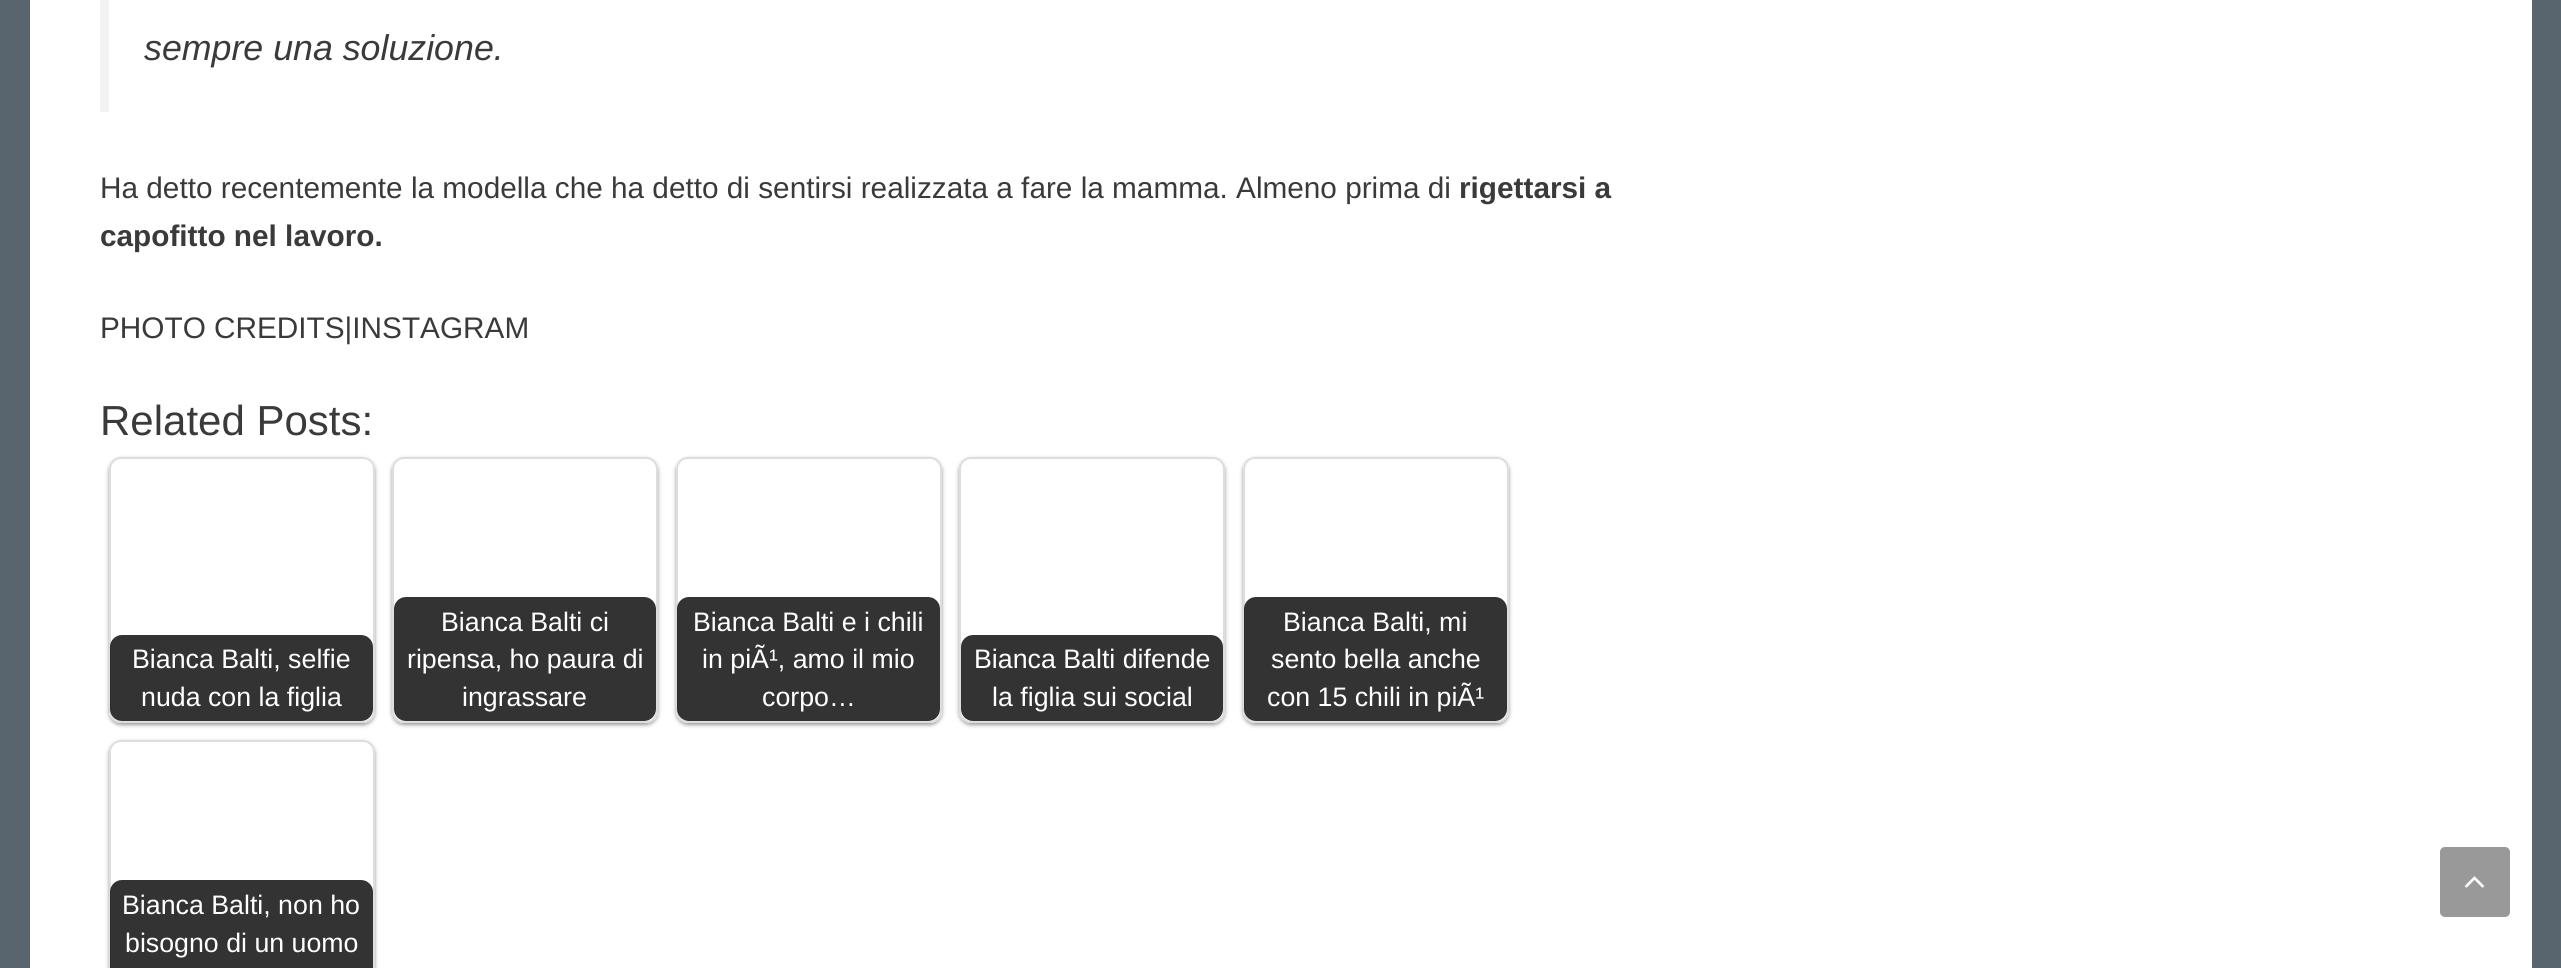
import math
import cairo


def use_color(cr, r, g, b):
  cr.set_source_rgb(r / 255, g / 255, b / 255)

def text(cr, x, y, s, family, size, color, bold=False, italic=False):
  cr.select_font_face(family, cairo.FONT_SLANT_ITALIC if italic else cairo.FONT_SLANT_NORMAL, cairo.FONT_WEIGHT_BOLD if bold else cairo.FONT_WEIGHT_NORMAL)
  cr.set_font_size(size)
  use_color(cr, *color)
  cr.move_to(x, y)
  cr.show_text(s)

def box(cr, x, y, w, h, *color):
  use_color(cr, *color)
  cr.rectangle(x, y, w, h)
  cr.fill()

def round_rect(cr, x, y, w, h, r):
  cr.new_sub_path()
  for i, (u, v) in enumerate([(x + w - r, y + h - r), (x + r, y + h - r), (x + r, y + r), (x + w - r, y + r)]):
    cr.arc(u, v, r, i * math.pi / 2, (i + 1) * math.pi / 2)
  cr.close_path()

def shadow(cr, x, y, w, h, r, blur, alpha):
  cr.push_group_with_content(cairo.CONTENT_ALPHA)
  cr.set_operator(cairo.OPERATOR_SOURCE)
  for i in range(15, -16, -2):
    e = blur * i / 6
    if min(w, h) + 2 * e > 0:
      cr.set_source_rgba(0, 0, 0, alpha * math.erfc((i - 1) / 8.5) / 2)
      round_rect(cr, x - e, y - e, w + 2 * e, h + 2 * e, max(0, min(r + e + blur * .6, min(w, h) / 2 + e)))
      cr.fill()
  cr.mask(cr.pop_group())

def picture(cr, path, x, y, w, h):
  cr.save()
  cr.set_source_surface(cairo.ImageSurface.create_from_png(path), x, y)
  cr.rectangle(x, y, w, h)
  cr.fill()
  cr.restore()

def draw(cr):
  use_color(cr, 88, 101, 111)
  cr.paint()
  box(cr, 30, 0, 2502, 968, 255, 255, 255)
  box(cr, 100, 0, 9, 112, 242, 242, 242)
  cr.save()
  cr.set_fill_rule(cairo.FILL_RULE_EVEN_ODD)
  cr.new_path()
  cr.move_to(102, 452)
  cr.line_to(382, 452)
  cr.line_to(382, 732)
  cr.line_to(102, 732)
  cr.close_path()
  cr.move_to(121, 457)
  cr.line_to(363, 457)
  cr.curve_to(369.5, 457, 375, 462.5, 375, 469)
  cr.line_to(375, 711)
  cr.curve_to(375, 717.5, 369.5, 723, 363, 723)
  cr.line_to(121, 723)
  cr.curve_to(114.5, 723, 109, 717.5, 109, 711)
  cr.line_to(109, 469)
  cr.curve_to(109, 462.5, 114.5, 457, 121, 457)
  cr.close_path()
  cr.clip()
  use_color(cr, 0, 0, 0)
  shadow(cr, 109, 459, 266, 266, 12, 2, 0.4)
  cr.restore()
  round_rect(cr, 110, 458, 264, 264, 11)
  use_color(cr, 221, 221, 221)
  cr.stroke()
  cr.save()
  round_rect(cr, 110, 459, 263, 262, 11)
  cr.clip()
  cr.set_source_rgba(0, 0, 0, 0.8)
  round_rect(cr, 110, 635, 263, 86, 12)
  cr.fill()
  cr.restore()
  cr.save()
  cr.set_fill_rule(cairo.FILL_RULE_EVEN_ODD)
  cr.new_path()
  cr.move_to(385, 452)
  cr.line_to(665, 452)
  cr.line_to(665, 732)
  cr.line_to(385, 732)
  cr.close_path()
  cr.move_to(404, 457)
  cr.line_to(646, 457)
  cr.curve_to(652.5, 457, 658, 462.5, 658, 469)
  cr.line_to(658, 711)
  cr.curve_to(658, 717.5, 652.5, 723, 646, 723)
  cr.line_to(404, 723)
  cr.curve_to(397.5, 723, 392, 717.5, 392, 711)
  cr.line_to(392, 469)
  cr.curve_to(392, 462.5, 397.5, 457, 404, 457)
  cr.close_path()
  cr.clip()
  use_color(cr, 0, 0, 0)
  shadow(cr, 392, 459, 266, 266, 12, 2, 0.4)
  cr.restore()
  round_rect(cr, 393, 458, 264, 264, 11)
  cr.stroke()
  cr.save()
  round_rect(cr, 394, 459, 262, 262, 11)
  cr.clip()
  use_color(cr, 51, 51, 51)
  round_rect(cr, 394, 597, 262, 124, 12)
  cr.fill()
  cr.restore()
  cr.save()
  cr.set_fill_rule(cairo.FILL_RULE_EVEN_ODD)
  cr.new_path()
  cr.move_to(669, 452)
  cr.line_to(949, 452)
  cr.line_to(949, 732)
  cr.line_to(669, 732)
  cr.close_path()
  cr.move_to(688, 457)
  cr.line_to(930, 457)
  cr.curve_to(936.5, 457, 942, 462.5, 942, 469)
  cr.line_to(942, 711)
  cr.curve_to(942, 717.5, 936.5, 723, 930, 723)
  cr.line_to(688, 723)
  cr.curve_to(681.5, 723, 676, 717.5, 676, 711)
  cr.line_to(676, 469)
  cr.curve_to(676, 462.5, 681.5, 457, 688, 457)
  cr.close_path()
  cr.clip()
  use_color(cr, 0, 0, 0)
  shadow(cr, 676, 459, 266, 266, 12, 2, 0.4)
  cr.restore()
  round_rect(cr, 677, 458, 264, 264, 11)
  cr.stroke()
  cr.save()
  round_rect(cr, 677, 459, 263, 262, 11)
  cr.clip()
  cr.set_source_rgba(0, 0, 0, 0.8)
  round_rect(cr, 677, 597, 263, 124, 12)
  cr.fill()
  cr.restore()
  cr.save()
  cr.set_fill_rule(cairo.FILL_RULE_EVEN_ODD)
  cr.new_path()
  cr.move_to(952, 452)
  cr.line_to(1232, 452)
  cr.line_to(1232, 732)
  cr.line_to(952, 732)
  cr.close_path()
  cr.move_to(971, 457)
  cr.line_to(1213, 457)
  cr.curve_to(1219.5, 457, 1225, 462.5, 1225, 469)
  cr.line_to(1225, 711)
  cr.curve_to(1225, 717.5, 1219.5, 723, 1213, 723)
  cr.line_to(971, 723)
  cr.curve_to(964.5, 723, 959, 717.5, 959, 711)
  cr.line_to(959, 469)
  cr.curve_to(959, 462.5, 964.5, 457, 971, 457)
  cr.close_path()
  cr.clip()
  use_color(cr, 0, 0, 0)
  shadow(cr, 959, 459, 266, 266, 12, 2, 0.4)
  cr.restore()
  round_rect(cr, 960, 458, 264, 264, 11)
  cr.stroke()
  cr.save()
  round_rect(cr, 961, 459, 262, 262, 11)
  cr.clip()
  use_color(cr, 51, 51, 51)
  round_rect(cr, 961, 635, 262, 86, 12)
  cr.fill()
  cr.restore()
  cr.save()
  cr.set_fill_rule(cairo.FILL_RULE_EVEN_ODD)
  cr.new_path()
  cr.move_to(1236, 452)
  cr.line_to(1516, 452)
  cr.line_to(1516, 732)
  cr.line_to(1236, 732)
  cr.close_path()
  cr.move_to(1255, 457)
  cr.line_to(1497, 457)
  cr.curve_to(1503.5, 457, 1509, 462.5, 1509, 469)
  cr.line_to(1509, 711)
  cr.curve_to(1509, 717.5, 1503.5, 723, 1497, 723)
  cr.line_to(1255, 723)
  cr.curve_to(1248.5, 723, 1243, 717.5, 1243, 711)
  cr.line_to(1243, 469)
  cr.curve_to(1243, 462.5, 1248.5, 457, 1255, 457)
  cr.close_path()
  cr.clip()
  use_color(cr, 0, 0, 0)
  shadow(cr, 1243, 459, 266, 266, 12, 2, 0.4)
  cr.restore()
  round_rect(cr, 1244, 458, 264, 264, 11)
  cr.stroke()
  cr.save()
  round_rect(cr, 1244, 459, 263, 262, 11)
  cr.clip()
  cr.set_source_rgba(0, 0, 0, 0.8)
  round_rect(cr, 1244, 597, 263, 124, 12)
  cr.fill()
  cr.restore()
  cr.save()
  cr.set_fill_rule(cairo.FILL_RULE_EVEN_ODD)
  cr.new_path()
  cr.move_to(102, 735)
  cr.line_to(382, 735)
  cr.line_to(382, 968)
  cr.line_to(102, 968)
  cr.close_path()
  cr.move_to(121, 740)
  cr.line_to(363, 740)
  cr.curve_to(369.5, 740, 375, 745.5, 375, 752)
  cr.line_to(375, 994)
  cr.curve_to(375, 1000.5, 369.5, 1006, 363, 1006)
  cr.line_to(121, 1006)
  cr.curve_to(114.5, 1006, 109, 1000.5, 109, 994)
  cr.line_to(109, 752)
  cr.curve_to(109, 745.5, 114.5, 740, 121, 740)
  cr.close_path()
  cr.clip()
  use_color(cr, 0, 0, 0)
  shadow(cr, 109, 742, 266, 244, 12, 2, 0.4)
  cr.restore()
  round_rect(cr, 110, 741, 264, 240, 11)
  cr.stroke()
  cr.set_source_rgba(0, 0, 0, 0.8)
  round_rect(cr, 110, 880, 263, 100, 12)
  cr.fill()
  use_color(cr, 153, 153, 153)
  round_rect(cr, 2440, 847, 70, 70, 5)
  cr.fill()
  picture(cr, "img_01.png", 2464, 876, 20, 12)
  text(cr, 144, 60, "sempre una soluzione.", "Liberation Sans", 35.75, (58, 58, 58), italic=True)
  text(cr, 100, 198, "Ha detto recentemente la modella che ha detto di sentirsi realizzata a fare la mamma. Almeno prima di", "Liberation Sans", 29.75, (58, 58, 58))
  text(cr, 1459, 198, "rigettarsi a", "Liberation Sans", 29.75, (58, 58, 58), bold=True)
  text(cr, 100, 246, "capofitto nel lavoro.", "Liberation Sans", 29.75, (58, 58, 58), bold=True)
  text(cr, 100, 338, "PHOTO CREDITS|INSTAGRAM", "Liberation Sans", 29.75, (58, 58, 58))
  text(cr, 100, 435, "Related Posts:", "Liberation Sans", 42, (58, 58, 58))
  text(cr, 132, 668, "Bianca Balti, selfie", "Liberation Sans", 26.75, (255, 255, 255))
  text(cr, 141, 706, "nuda con la figlia", "Liberation Sans", 26.75, (255, 255, 255))
  text(cr, 441, 631, "Bianca Balti ci", "Liberation Sans", 26.75, (255, 255, 255))
  text(cr, 407, 668, "ripensa, ho paura di", "Liberation Sans", 26.75, (255, 255, 255))
  text(cr, 462, 706, "ingrassare", "Liberation Sans", 26.75, (255, 255, 255))
  text(cr, 693, 631, "Bianca Balti e i chili", "Liberation Sans", 26.75, (255, 255, 255))
  text(cr, 702, 668, "in piÃ¹, amo il mio", "Liberation Sans", 26.75, (255, 255, 255))
  text(cr, 762, 706, "corpo…", "Liberation Sans", 26.75, (255, 255, 255))
  text(cr, 974, 668, "Bianca Balti difende", "Liberation Sans", 26.75, (255, 255, 255))
  text(cr, 992, 706, "la figlia sui social", "Liberation Sans", 26.75, (255, 255, 255))
  text(cr, 1283, 631, "Bianca Balti, mi", "Liberation Sans", 26.75, (255, 255, 255))
  text(cr, 1271, 668, "sento bella anche", "Liberation Sans", 26.75, (255, 255, 255))
  text(cr, 1267, 706, "con 15 chili in piÃ¹", "Liberation Sans", 26.75, (255, 255, 255))
  text(cr, 122, 914, "Bianca Balti, non ho", "Liberation Sans", 26.75, (255, 255, 255))
  text(cr, 125, 952, "bisogno di un uomo", "Liberation Sans", 26.75, (255, 255, 255))


surface = cairo.ImageSurface(cairo.FORMAT_RGB24, 2561, 968)
cr = cairo.Context(surface)
options = cairo.FontOptions()
options.set_hint_metrics(cairo.HINT_METRICS_OFF)
options.set_hint_style(cairo.HINT_STYLE_NONE)
cr.set_font_options(options)
cr.set_miter_limit(4)
draw(cr)
surface.write_to_png("out.png")
